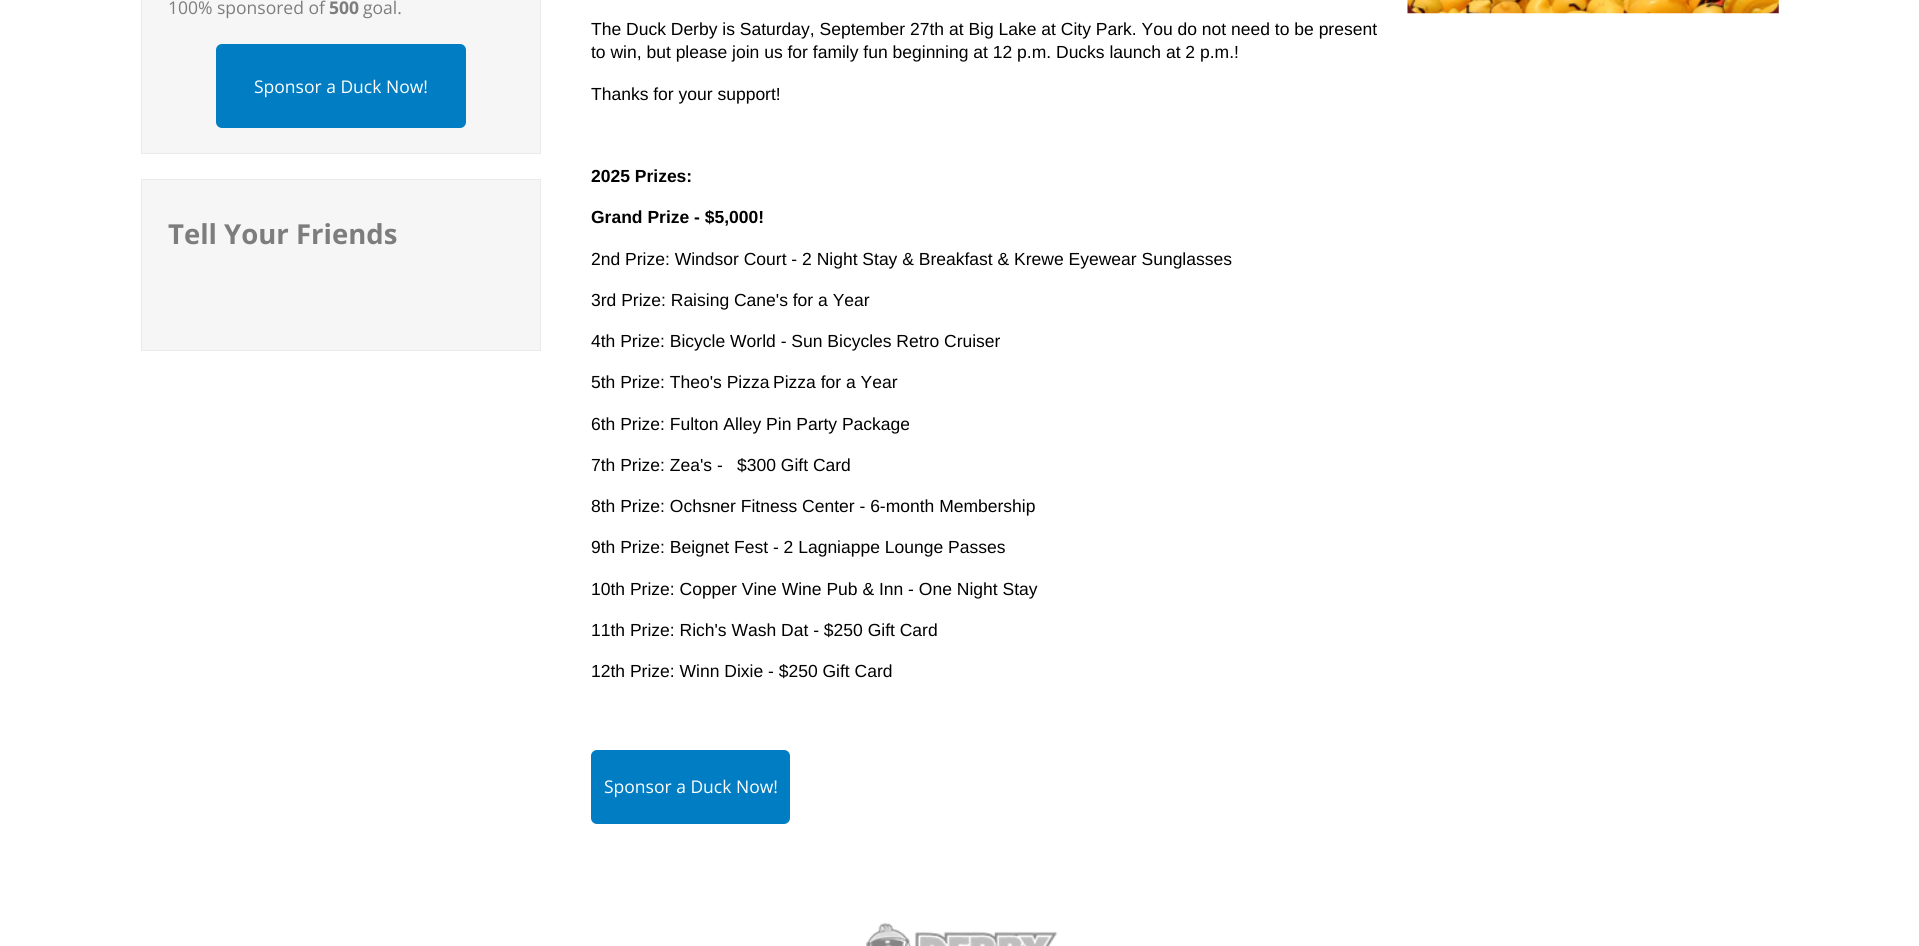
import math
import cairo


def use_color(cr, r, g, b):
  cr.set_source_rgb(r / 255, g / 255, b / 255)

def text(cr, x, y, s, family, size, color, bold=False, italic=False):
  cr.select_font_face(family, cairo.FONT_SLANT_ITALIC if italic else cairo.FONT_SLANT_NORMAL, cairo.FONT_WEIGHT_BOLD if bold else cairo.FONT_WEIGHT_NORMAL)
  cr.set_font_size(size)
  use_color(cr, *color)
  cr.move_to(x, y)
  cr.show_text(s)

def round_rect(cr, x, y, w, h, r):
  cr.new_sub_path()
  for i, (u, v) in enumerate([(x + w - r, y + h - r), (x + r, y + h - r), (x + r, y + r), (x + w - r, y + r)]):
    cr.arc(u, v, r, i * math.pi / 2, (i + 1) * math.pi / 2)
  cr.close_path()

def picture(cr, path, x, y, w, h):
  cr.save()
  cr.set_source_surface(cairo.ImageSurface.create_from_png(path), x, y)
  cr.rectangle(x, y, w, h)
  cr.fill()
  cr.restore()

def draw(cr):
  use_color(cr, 255, 255, 255)
  cr.paint()
  use_color(cr, 246, 246, 246)
  cr.rectangle(141.5, -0.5, 399, 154)
  cr.fill_preserve()
  use_color(cr, 234, 234, 234)
  cr.set_line_width(1)
  cr.stroke()
  use_color(cr, 1, 125, 195)
  round_rect(cr, 216, 44, 250, 84, 6)
  cr.fill()
  use_color(cr, 246, 246, 246)
  cr.rectangle(141.5, 179.5, 399, 171)
  cr.fill_preserve()
  use_color(cr, 234, 234, 234)
  cr.stroke()
  picture(cr, "img_01.png", 1407, 0, 372, 14)
  use_color(cr, 1, 125, 195)
  round_rect(cr, 591, 750, 199, 74, 6)
  cr.fill()
  picture(cr, "img_02.png", 866, 923, 192, 23)
  text(cr, 168, 14, "100% sponsored of", "Open Sans", 17.5, (125, 125, 125))
  text(cr, 329, 14, "500", "Open Sans", 17.5, (125, 125, 125), bold=True)
  text(cr, 363, 14, "goal.", "Open Sans", 17.5, (125, 125, 125))
  text(cr, 254, 93, "Sponsor a Duck Now!", "Open Sans", 17.5, (255, 255, 255))
  text(cr, 168, 244, "Tell Your Friends", "Open Sans", 27.5, (125, 125, 125), bold=True)
  text(cr, 591, 35, "The Duck Derby is Saturday, September 27th at Big Lake at City Park. You do not need to be present", "Liberation Sans", 17.5, (0, 0, 0))
  text(cr, 591, 58, "to win, but please join us for family fun beginning at 12 p.m. Ducks launch at 2 p.m.!", "Liberation Sans", 17.5, (0, 0, 0))
  text(cr, 591, 100, "Thanks for your support!", "Liberation Sans", 17.5, (0, 0, 0))
  text(cr, 591, 182, "2025 Prizes:", "Liberation Sans", 17.5, (0, 0, 0), bold=True)
  text(cr, 591, 223, "Grand Prize - $5,000!", "Liberation Sans", 17.5, (0, 0, 0), bold=True)
  text(cr, 591, 265, "2nd Prize: Windsor Court - 2 Night Stay & Breakfast & Krewe Eyewear Sunglasses", "Liberation Sans", 17.5, (0, 0, 0))
  text(cr, 591, 306, "3rd Prize: Raising Cane's for a Year", "Liberation Sans", 17.5, (0, 0, 0))
  text(cr, 591, 347, "4th Prize: Bicycle World - Sun Bicycles Retro Cruiser", "Liberation Sans", 17.5, (0, 0, 0))
  text(cr, 591, 388, "5th Prize: Theo's Pizza", "Liberation Sans", 17.5, (0, 0, 0))
  text(cr, 773, 388, "Pizza for a Year", "Liberation Sans", 17.5, (0, 0, 0))
  text(cr, 591, 430, "6th Prize: Fulton Alley Pin Party Package", "Liberation Sans", 17.5, (0, 0, 0))
  text(cr, 591, 471, "7th Prize: Zea's -", "Liberation Sans", 17.5, (0, 0, 0))
  text(cr, 737, 471, "$300 Gift Card", "Liberation Sans", 17.5, (0, 0, 0))
  text(cr, 591, 512, "8th Prize: Ochsner Fitness Center - 6-month Membership", "Liberation Sans", 17.5, (0, 0, 0))
  text(cr, 591, 553, "9th Prize: Beignet Fest - 2 Lagniappe Lounge Passes", "Liberation Sans", 17.5, (0, 0, 0))
  text(cr, 591, 595, "10th Prize: Copper Vine Wine Pub & Inn - One Night Stay", "Liberation Sans", 17.5, (0, 0, 0))
  text(cr, 591, 636, "11th Prize: Rich's Wash Dat - $250 Gift Card", "Liberation Sans", 17.5, (0, 0, 0))
  text(cr, 591, 677, "12th Prize: Winn Dixie - $250 Gift Card", "Liberation Sans", 17.5, (0, 0, 0))
  text(cr, 604, 793, "Sponsor a Duck Now!", "Open Sans", 17.5, (255, 255, 255))


surface = cairo.ImageSurface(cairo.FORMAT_RGB24, 1919, 946)
cr = cairo.Context(surface)
options = cairo.FontOptions()
options.set_hint_metrics(cairo.HINT_METRICS_OFF)
options.set_hint_style(cairo.HINT_STYLE_NONE)
cr.set_font_options(options)
cr.set_miter_limit(4)
draw(cr)
surface.write_to_png("out.png")
